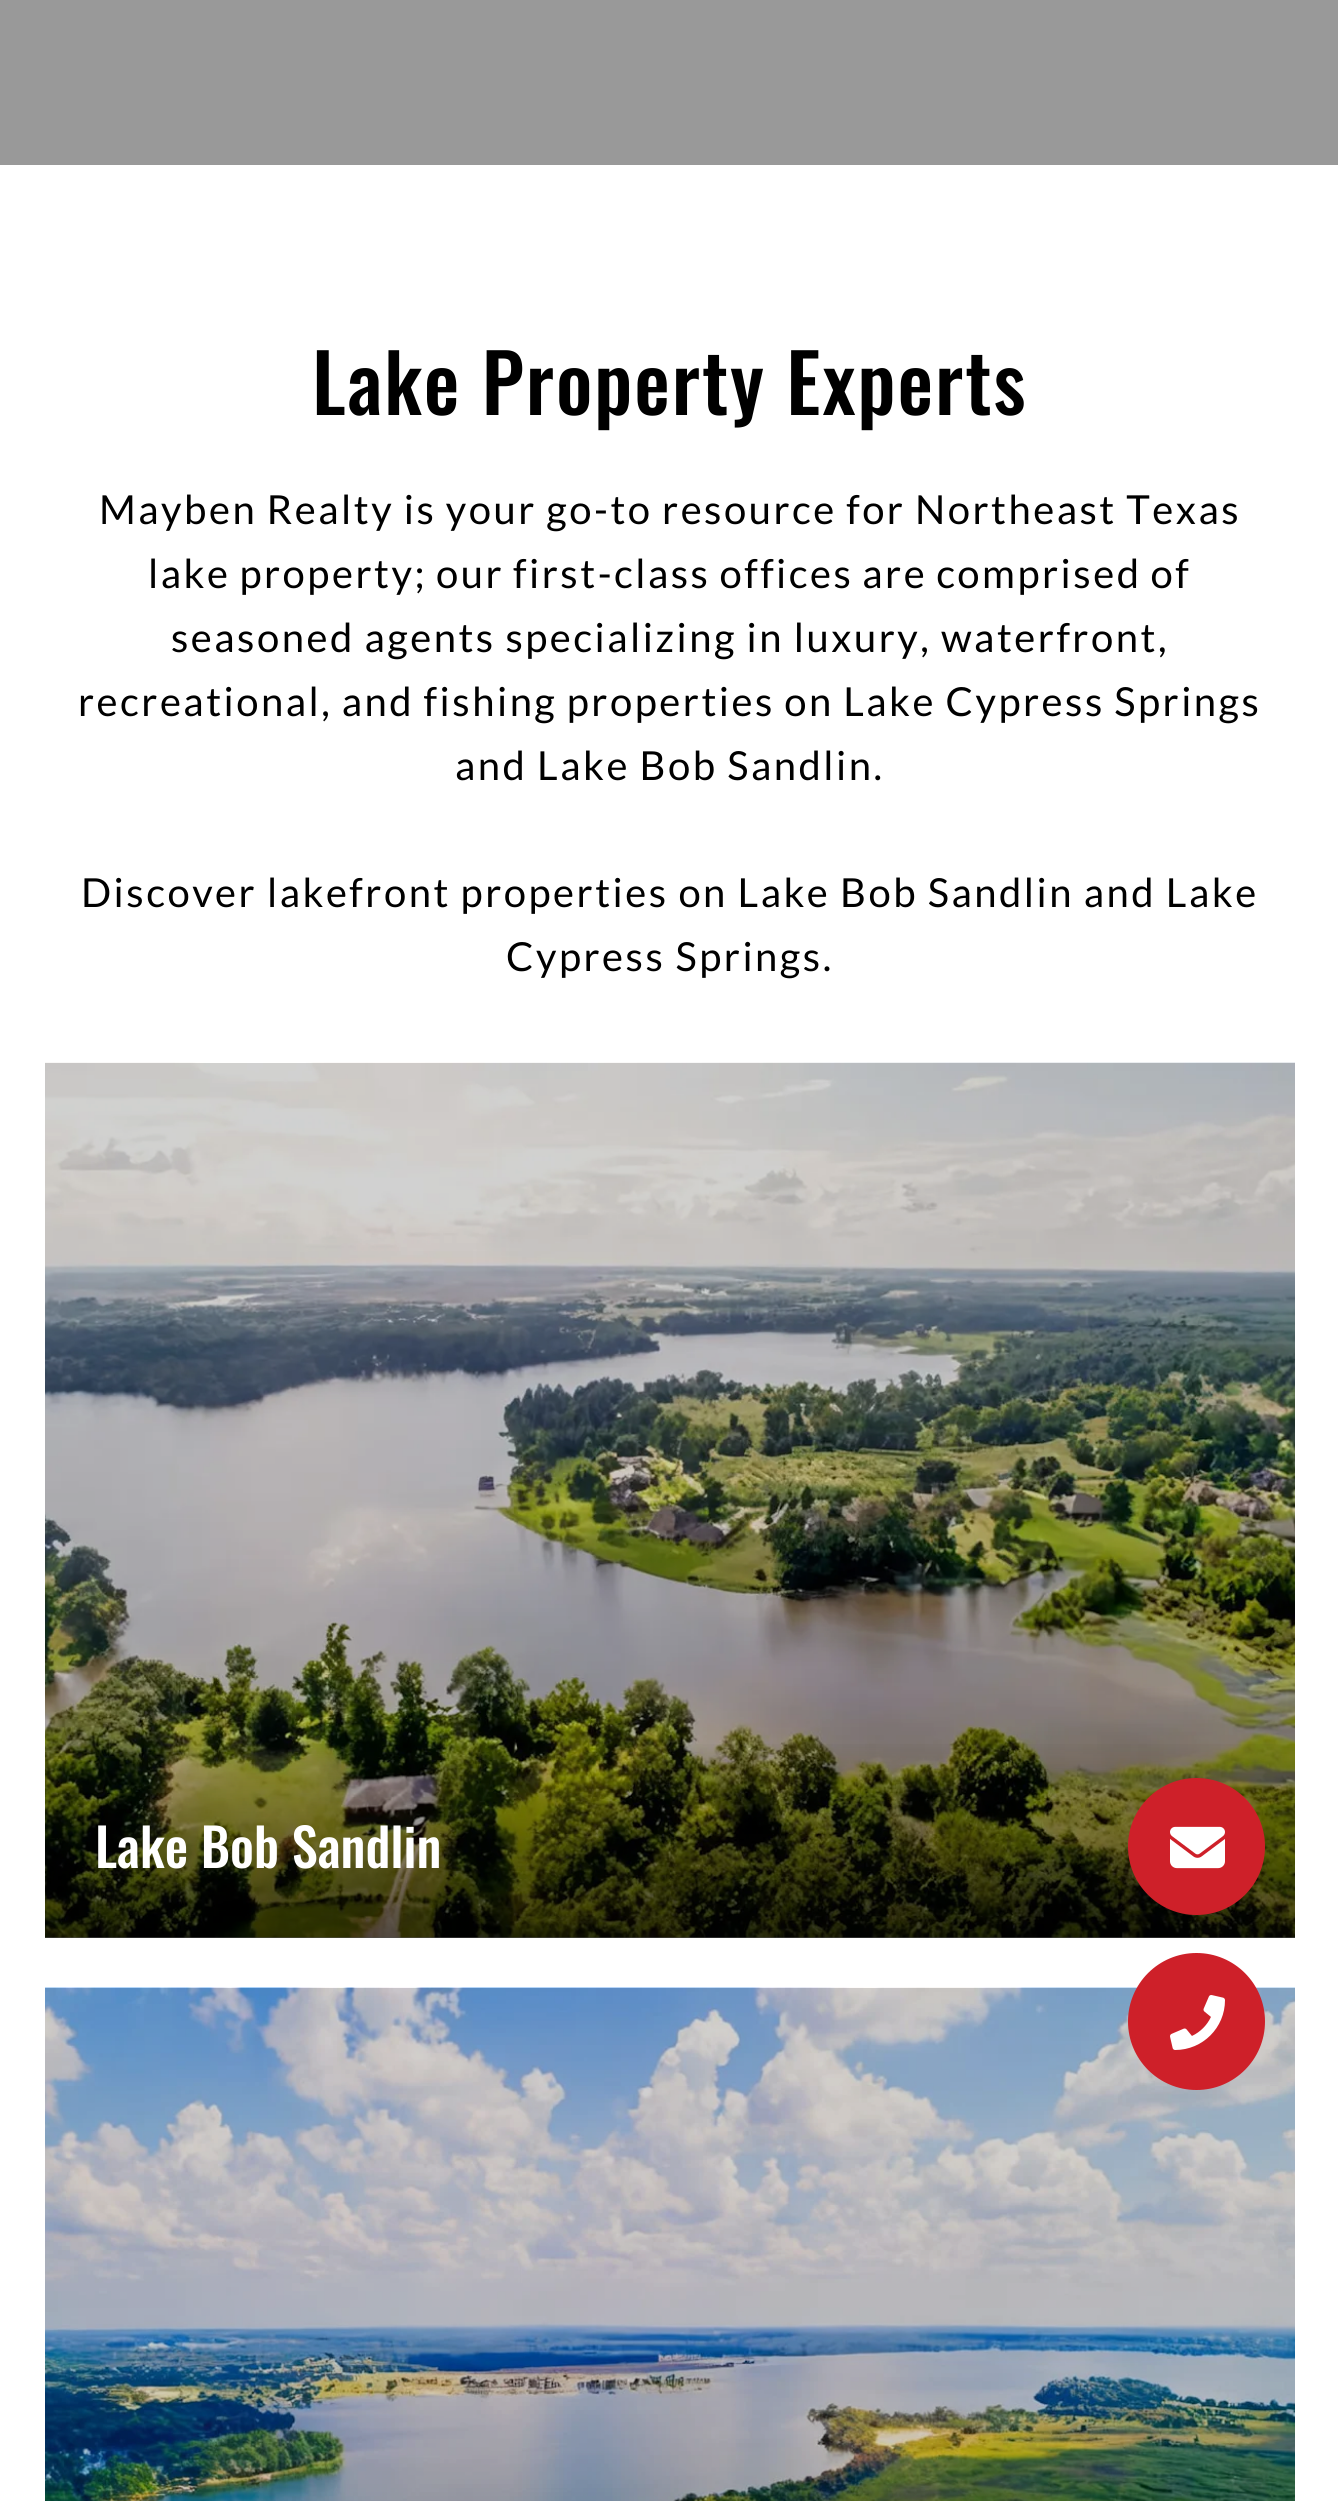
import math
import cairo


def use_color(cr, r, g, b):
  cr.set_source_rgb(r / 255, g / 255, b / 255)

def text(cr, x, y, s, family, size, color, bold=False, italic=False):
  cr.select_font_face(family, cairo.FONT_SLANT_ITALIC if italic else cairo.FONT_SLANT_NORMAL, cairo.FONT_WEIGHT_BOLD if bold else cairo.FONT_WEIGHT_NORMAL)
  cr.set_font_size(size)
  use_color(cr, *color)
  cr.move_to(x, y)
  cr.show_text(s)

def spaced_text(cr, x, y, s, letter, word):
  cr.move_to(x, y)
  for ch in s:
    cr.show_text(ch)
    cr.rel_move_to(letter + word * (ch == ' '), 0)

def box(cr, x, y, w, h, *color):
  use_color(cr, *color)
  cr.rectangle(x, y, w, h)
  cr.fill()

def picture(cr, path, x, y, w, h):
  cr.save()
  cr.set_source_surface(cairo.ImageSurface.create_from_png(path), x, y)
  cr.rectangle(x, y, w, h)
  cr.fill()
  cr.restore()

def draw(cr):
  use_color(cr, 255, 255, 255)
  cr.paint()
  box(cr, 45, 1937, 1250, 1, 209, 209, 209)
  box(cr, 0, 0, 1338, 165, 153, 153, 153)
  picture(cr, "img_01.png", 45, 1062, 1250, 876)
  gradient = cairo.LinearGradient(670, 1063, 670, 1938)
  gradient.add_color_stop_rgba(0.77, 0, 0, 0, 0)
  gradient.add_color_stop_rgba(1, 0, 0, 0, 0.6)
  cr.set_source(gradient)
  cr.rectangle(45, 1744, 1250, 194)
  cr.fill()
  picture(cr, "img_02.png", 45, 1987, 1250, 514)
  use_color(cr, 206, 32, 41)
  cr.arc(1196.5, 1846.5, 66, 0, 2 * math.pi)
  cr.fill_preserve()
  cr.set_line_width(5)
  cr.stroke()
  picture(cr, "img_03.png", 1170, 1826, 55, 43)
  cr.arc(1196.5, 2021.5, 66, 0, 2 * math.pi)
  cr.fill_preserve()
  cr.stroke()
  picture(cr, "img_04.png", 1170, 1995, 55, 55)
  cr.select_font_face("Oswald Medium")
  cr.set_font_size(80)
  use_color(cr, 0, 0, 0)
  spaced_text(cr, 312, 415, "Lake Property Experts", 1.9, -1)
  cr.select_font_face("Lato")
  cr.set_font_size(40)
  spaced_text(cr, 99, 524, "Mayben Realty is your go-to resource for Northeast Texas", 2.5, -0.75)
  spaced_text(cr, 148, 588, "lake property; our first-class offices are comprised of", 2.5, -1.25)
  spaced_text(cr, 171, 652, "seasoned agents specializing in luxury, waterfront,", 2.5, -0.5)
  spaced_text(cr, 78, 716, "recreational, and fishing properties on Lake Cypress Springs", 2.5, -0.75)
  spaced_text(cr, 455, 780, "and Lake Bob Sandlin.", 2.5, -0.5)
  spaced_text(cr, 81, 907, "Discover lakefront properties on Lake Bob Sandlin and Lake", 2.5, -0.5)
  spaced_text(cr, 506, 971, "Cypress Springs.", 2.5, 0)
  text(cr, 95, 1868, "Lake Bob Sandlin", "Oswald Medium", 52.5, (255, 255, 255))


surface = cairo.ImageSurface(cairo.FORMAT_RGB24, 1338, 2501)
cr = cairo.Context(surface)
options = cairo.FontOptions()
options.set_hint_metrics(cairo.HINT_METRICS_OFF)
options.set_hint_style(cairo.HINT_STYLE_NONE)
cr.set_font_options(options)
cr.set_miter_limit(4)
draw(cr)
surface.write_to_png("out.png")
